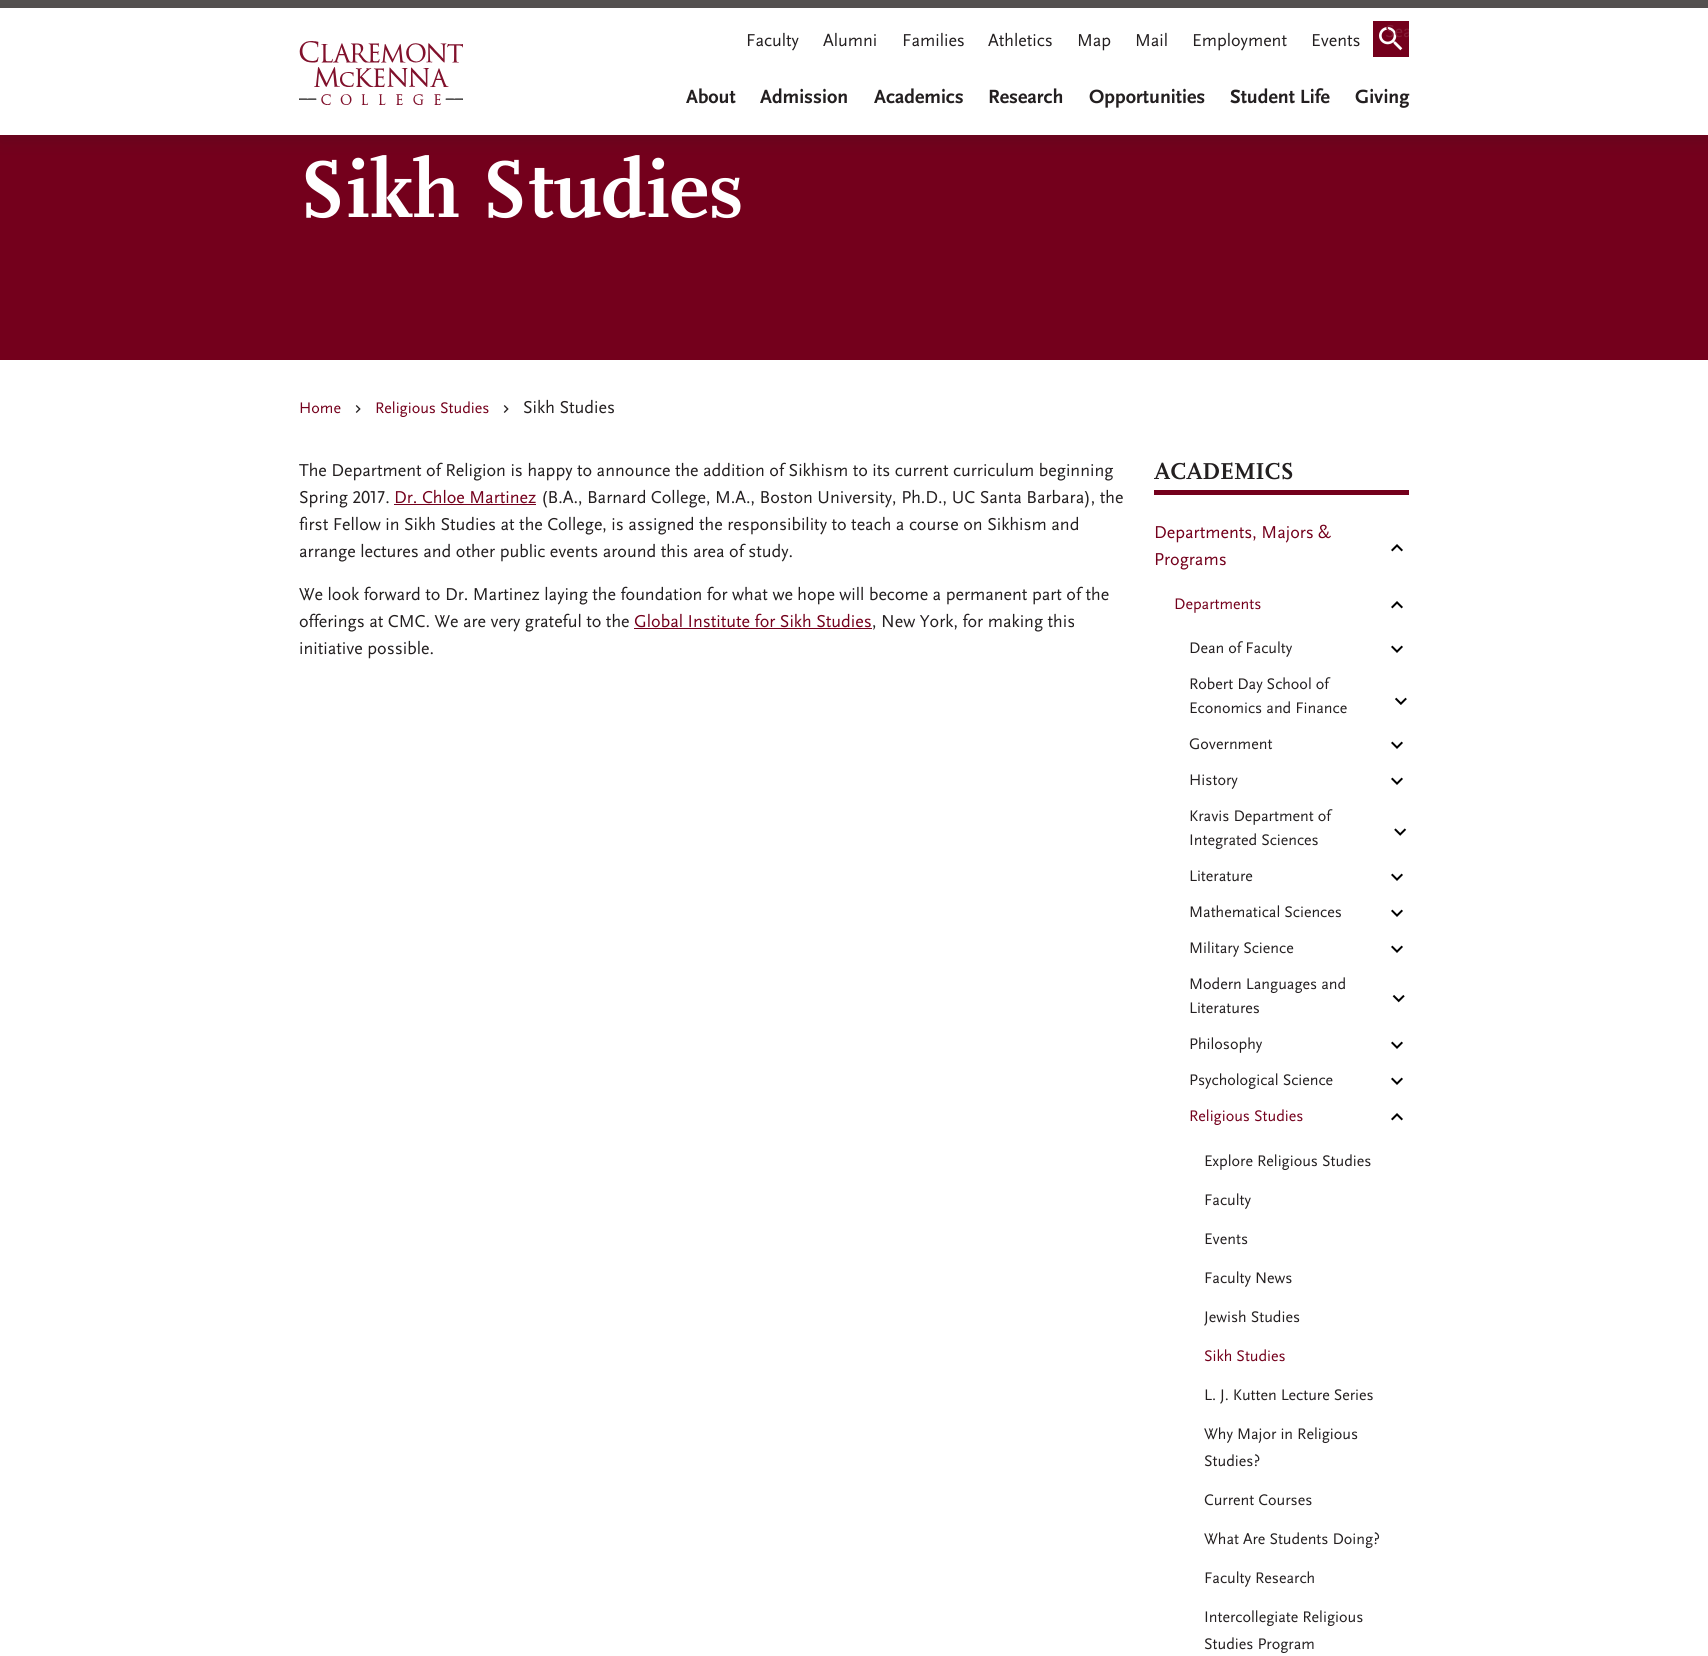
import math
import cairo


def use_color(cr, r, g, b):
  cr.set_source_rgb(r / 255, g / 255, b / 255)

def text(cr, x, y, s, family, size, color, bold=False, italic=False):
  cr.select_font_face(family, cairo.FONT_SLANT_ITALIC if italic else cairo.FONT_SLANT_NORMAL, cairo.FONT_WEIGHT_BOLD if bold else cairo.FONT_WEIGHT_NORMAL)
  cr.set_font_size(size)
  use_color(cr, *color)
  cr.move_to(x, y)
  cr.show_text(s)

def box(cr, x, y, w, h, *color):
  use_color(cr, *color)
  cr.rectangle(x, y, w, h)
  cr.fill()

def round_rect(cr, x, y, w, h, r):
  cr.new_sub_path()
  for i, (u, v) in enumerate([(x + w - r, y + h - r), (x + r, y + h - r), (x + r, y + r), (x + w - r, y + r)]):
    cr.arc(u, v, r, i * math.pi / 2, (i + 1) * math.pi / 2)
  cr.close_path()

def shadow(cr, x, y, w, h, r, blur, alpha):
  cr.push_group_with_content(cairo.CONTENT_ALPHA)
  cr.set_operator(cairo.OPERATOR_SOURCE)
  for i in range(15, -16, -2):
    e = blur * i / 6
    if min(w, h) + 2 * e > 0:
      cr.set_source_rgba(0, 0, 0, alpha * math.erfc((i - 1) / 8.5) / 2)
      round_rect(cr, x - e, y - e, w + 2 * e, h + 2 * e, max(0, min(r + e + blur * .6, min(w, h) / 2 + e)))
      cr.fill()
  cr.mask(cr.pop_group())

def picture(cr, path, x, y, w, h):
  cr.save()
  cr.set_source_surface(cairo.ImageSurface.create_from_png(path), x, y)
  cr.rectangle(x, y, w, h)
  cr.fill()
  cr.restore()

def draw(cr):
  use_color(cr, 255, 255, 255)
  cr.paint()
  box(cr, 0, 0, 1708, 8, 84, 81, 80)
  box(cr, 0, 135, 1708, 225, 116, 0, 28)
  use_color(cr, 35, 31, 32)
  shadow(cr, 0, 16, 1708, 127, 0, 8, 0.15)
  box(cr, 0, 8, 1708, 127, 255, 255, 255)
  box(cr, 1373, 21, 36, 36, 116, 0, 28)
  picture(cr, "img_01.png", 1379, 27, 24, 24)
  picture(cr, "img_02.png", 299, 41, 164, 64)
  picture(cr, "img_03.png", 355, 405, 6, 8)
  picture(cr, "img_03.png", 503, 405, 6, 8)
  box(cr, 394, 504, 142, 1, 116, 0, 28)
  box(cr, 634, 628, 238, 1, 116, 0, 28)
  box(cr, 1154, 490, 255, 5, 116, 0, 28)
  picture(cr, "img_04.png", 1391, 544, 12, 8)
  picture(cr, "img_04.png", 1391, 601, 12, 8)
  picture(cr, "img_05.png", 1391, 645, 12, 8)
  picture(cr, "img_06.png", 1395, 697, 12, 8)
  picture(cr, "img_05.png", 1391, 741, 12, 8)
  picture(cr, "img_05.png", 1391, 777, 12, 8)
  picture(cr, "img_07.png", 1394, 828, 13, 8)
  picture(cr, "img_05.png", 1391, 873, 12, 8)
  picture(cr, "img_05.png", 1391, 909, 12, 8)
  picture(cr, "img_05.png", 1391, 945, 12, 8)
  picture(cr, "img_08.png", 1392, 995, 13, 8)
  picture(cr, "img_05.png", 1391, 1041, 12, 8)
  picture(cr, "img_05.png", 1391, 1077, 12, 8)
  picture(cr, "img_04.png", 1391, 1113, 12, 8)
  text(cr, 746, 46, "Faculty", "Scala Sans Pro", 18, (35, 31, 32))
  text(cr, 823, 46, "Alumni", "Scala Sans Pro", 18, (35, 31, 32))
  text(cr, 902, 46, "Families", "Scala Sans Pro", 18, (35, 31, 32))
  text(cr, 988, 46, "Athletics", "Scala Sans Pro", 18, (35, 31, 32))
  text(cr, 1077, 46, "Map", "Scala Sans Pro", 18, (35, 31, 32))
  text(cr, 1135, 46, "Mail", "Scala Sans Pro", 18, (35, 31, 32))
  text(cr, 1192, 46, "Employment", "Scala Sans Pro", 18, (35, 31, 32))
  text(cr, 1311, 46, "Events", "Scala Sans Pro", 18, (35, 31, 32))
  cr.save()
  cr.rectangle(1373, 21, 36, 36)
  cr.clip()
  text(cr, 1385, 37, "Sea", "Scala Sans Pro", 18, (132, 29, 54))
  cr.restore()
  text(cr, 686, 103, "About", "Scala Sans Pro", 20, (35, 31, 32), bold=True)
  text(cr, 760, 103, "Admission", "Scala Sans Pro", 20, (35, 31, 32), bold=True)
  text(cr, 874, 103, "Academics", "Scala Sans Pro", 20, (35, 31, 32), bold=True)
  text(cr, 988, 103, "Research", "Scala Sans Pro", 20, (35, 31, 32), bold=True)
  text(cr, 1089, 103, "Opportunities", "Scala Sans Pro", 20, (35, 31, 32), bold=True)
  text(cr, 1230, 103, "Student Life", "Scala Sans Pro", 20, (35, 31, 32), bold=True)
  text(cr, 1355, 103, "Giving", "Scala Sans Pro", 20, (35, 31, 32), bold=True)
  text(cr, 299, 217, "Sikh Studies", "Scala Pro", 84, (255, 255, 255), bold=True)
  text(cr, 299, 413, "Home", "Scala Sans Pro", 16, (116, 0, 28))
  text(cr, 375, 413, "Religious Studies", "Scala Sans Pro", 16, (116, 0, 28))
  text(cr, 523, 413, "Sikh Studies", "Scala Sans Pro", 18, (35, 31, 32))
  text(cr, 299, 476, "The Department of Religion is happy to announce the addition of Sikhism to its current curriculum beginning", "Scala Sans Pro", 18, (35, 31, 32))
  text(cr, 299, 503, "Spring 2017.", "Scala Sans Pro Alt", 18, (35, 31, 32))
  text(cr, 394, 503, "Dr. Chloe Martinez", "Scala Sans Pro", 18, (116, 0, 28))
  text(cr, 541, 503, "(B.A., Barnard College, M.A., Boston University, Ph.D., UC Santa Barbara), the", "Scala Sans Pro", 18, (35, 31, 32))
  text(cr, 299, 530, "first Fellow in Sikh Studies at the College, is assigned the responsibility to teach a course on Sikhism and", "Scala Sans Pro", 18, (35, 31, 32))
  text(cr, 299, 557, "arrange lectures and other public events around this area of study.", "Scala Sans Pro", 18, (35, 31, 32))
  text(cr, 299, 600, "We look forward to Dr. Martinez laying the foundation for what we hope will become a permanent part of the", "Scala Sans Pro", 18, (35, 31, 32))
  text(cr, 299, 627, "offerings at CMC. We are very grateful to the", "Scala Sans Pro", 18, (35, 31, 32))
  text(cr, 634, 627, "Global Institute for Sikh Studies", "Scala Sans Pro", 18, (116, 0, 28))
  text(cr, 872, 627, ", New York, for making this", "Scala Sans Pro", 18, (35, 31, 32))
  text(cr, 299, 654, "initiative possible.", "Scala Sans Pro", 18, (35, 31, 32))
  text(cr, 1154, 479, "ACADEMICS", "Scala Pro", 24, (35, 31, 32), bold=True)
  text(cr, 1154, 538, "Departments, Majors &", "Scala Sans Pro", 18, (116, 0, 28))
  text(cr, 1154, 565, "Programs", "Scala Sans Pro", 18, (116, 0, 28))
  text(cr, 1174, 609, "Departments", "Scala Sans Pro", 16, (116, 0, 28))
  text(cr, 1189, 653, "Dean of Faculty", "Scala Sans Pro", 16, (35, 31, 32))
  text(cr, 1189, 689, "Robert Day School of", "Scala Sans Pro", 16, (35, 31, 32))
  text(cr, 1189, 713, "Economics and Finance", "Scala Sans Pro", 16, (35, 31, 32))
  text(cr, 1189, 749, "Government", "Scala Sans Pro", 16, (35, 31, 32))
  text(cr, 1189, 785, "History", "Scala Sans Pro", 16, (35, 31, 32))
  text(cr, 1189, 821, "Kravis Department of", "Scala Sans Pro", 16, (35, 31, 32))
  text(cr, 1189, 845, "Integrated Sciences", "Scala Sans Pro", 16, (35, 31, 32))
  text(cr, 1189, 881, "Literature", "Scala Sans Pro", 16, (35, 31, 32))
  text(cr, 1189, 917, "Mathematical Sciences", "Scala Sans Pro", 16, (35, 31, 32))
  text(cr, 1189, 953, "Military Science", "Scala Sans Pro", 16, (35, 31, 32))
  text(cr, 1189, 989, "Modern Languages and", "Scala Sans Pro", 16, (35, 31, 32))
  text(cr, 1189, 1013, "Literatures", "Scala Sans Pro", 16, (35, 31, 32))
  text(cr, 1189, 1049, "Philosophy", "Scala Sans Pro", 16, (35, 31, 32))
  text(cr, 1189, 1085, "Psychological Science", "Scala Sans Pro", 16, (35, 31, 32))
  text(cr, 1189, 1121, "Religious Studies", "Scala Sans Pro", 16, (116, 0, 28))
  text(cr, 1204, 1166, "Explore Religious Studies", "Scala Sans Pro", 16, (35, 31, 32))
  text(cr, 1204, 1205, "Faculty", "Scala Sans Pro", 16, (35, 31, 32))
  text(cr, 1204, 1244, "Events", "Scala Sans Pro", 16, (35, 31, 32))
  text(cr, 1204, 1283, "Faculty News", "Scala Sans Pro", 16, (35, 31, 32))
  text(cr, 1204, 1322, "Jewish Studies", "Scala Sans Pro", 16, (35, 31, 32))
  text(cr, 1204, 1361, "Sikh Studies", "Scala Sans Pro", 16, (116, 0, 28))
  text(cr, 1204, 1400, "L. J. Kutten Lecture Series", "Scala Sans Pro", 16, (35, 31, 32))
  text(cr, 1204, 1439, "Why Major in Religious", "Scala Sans Pro", 16, (35, 31, 32))
  text(cr, 1204, 1466, "Studies?", "Scala Sans Pro", 16, (35, 31, 32))
  text(cr, 1204, 1505, "Current Courses", "Scala Sans Pro", 16, (35, 31, 32))
  text(cr, 1204, 1544, "What Are Students Doing?", "Scala Sans Pro", 16, (35, 31, 32))
  text(cr, 1204, 1583, "Faculty Research", "Scala Sans Pro", 16, (35, 31, 32))
  text(cr, 1204, 1622, "Intercollegiate Religious", "Scala Sans Pro", 16, (35, 31, 32))
  text(cr, 1204, 1649, "Studies Program", "Scala Sans Pro", 16, (35, 31, 32))


surface = cairo.ImageSurface(cairo.FORMAT_RGB24, 1708, 1656)
cr = cairo.Context(surface)
options = cairo.FontOptions()
options.set_hint_metrics(cairo.HINT_METRICS_OFF)
options.set_hint_style(cairo.HINT_STYLE_NONE)
cr.set_font_options(options)
cr.set_miter_limit(4)
draw(cr)
surface.write_to_png("out.png")
